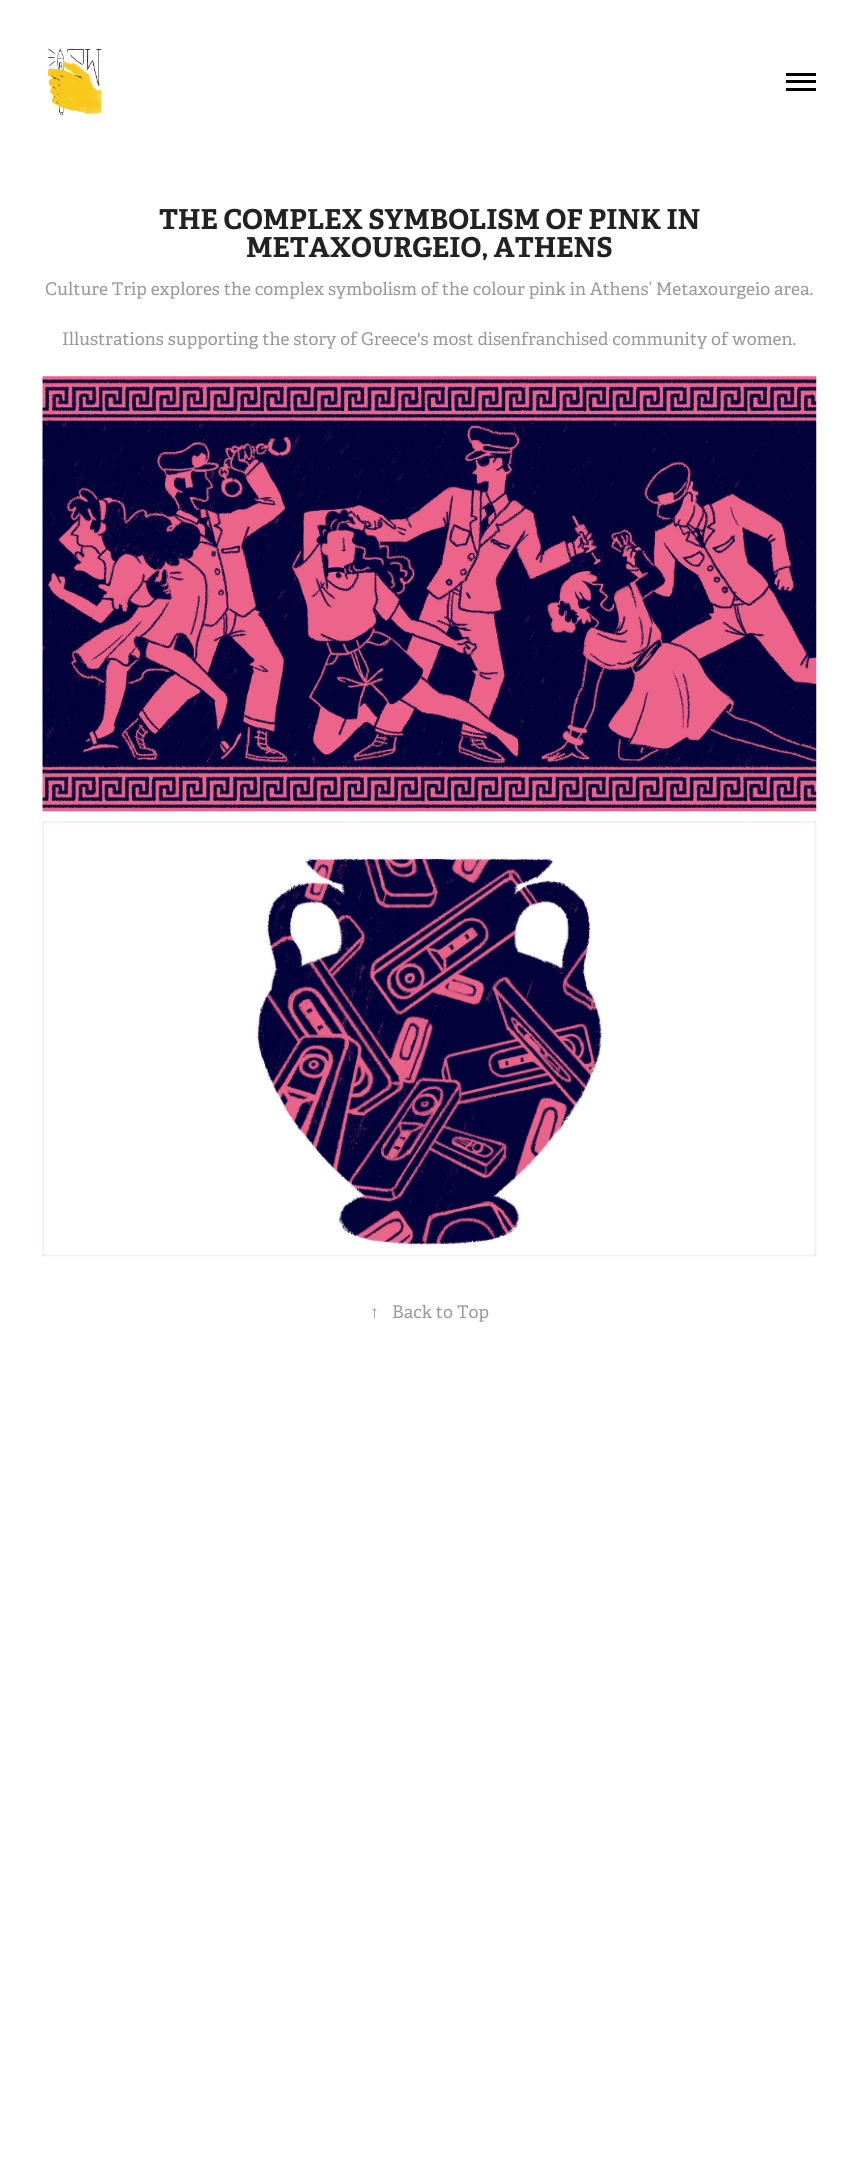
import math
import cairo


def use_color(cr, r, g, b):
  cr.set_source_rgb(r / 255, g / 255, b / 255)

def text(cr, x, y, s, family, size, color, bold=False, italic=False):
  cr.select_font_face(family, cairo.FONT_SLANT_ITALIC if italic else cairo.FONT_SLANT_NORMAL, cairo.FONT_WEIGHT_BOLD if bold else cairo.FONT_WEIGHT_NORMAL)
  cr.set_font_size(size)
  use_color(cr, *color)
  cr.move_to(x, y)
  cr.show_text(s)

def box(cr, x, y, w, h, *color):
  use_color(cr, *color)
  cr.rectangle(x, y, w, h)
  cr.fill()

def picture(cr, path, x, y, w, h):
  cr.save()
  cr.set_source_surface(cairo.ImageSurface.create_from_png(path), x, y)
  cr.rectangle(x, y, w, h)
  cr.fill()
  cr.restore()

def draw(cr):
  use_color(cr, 255, 255, 255)
  cr.paint()
  picture(cr, "img_01.png", 47, 48, 55, 68)
  box(cr, 786, 73, 30, 3, 0, 0, 0)
  box(cr, 786, 80, 30, 3, 0, 0, 0)
  box(cr, 786, 88, 30, 3, 0, 0, 0)
  picture(cr, "img_02.png", 42, 376, 775, 436)
  picture(cr, "img_03.png", 42, 821, 775, 436)
  text(cr, 159, 229, "THE COMPLEX SYMBOLISM OF PINK IN", "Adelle", 27.5, (34, 34, 34), bold=True)
  text(cr, 246, 257, "METAXOURGEIO, ATHENS", "Adelle", 27.5, (34, 34, 34), bold=True)
  text(cr, 45, 295, "Culture Trip explores the complex symbolism of the colour pink in Athens’ Metaxourgeio area.", "Adelle", 17.5, (153, 153, 153))
  text(cr, 62, 345, "Illustrations supporting the story of Greece's most disenfranchised community of women.", "Adelle", 17.5, (153, 153, 153))
  text(cr, 370, 1318, "↑", "Liberation Serif", 17.5, (153, 153, 153))
  text(cr, 392, 1318, "Back to Top", "Adelle", 17.5, (153, 153, 153))


surface = cairo.ImageSurface(cairo.FORMAT_RGB24, 858, 2178)
cr = cairo.Context(surface)
options = cairo.FontOptions()
options.set_hint_metrics(cairo.HINT_METRICS_OFF)
options.set_hint_style(cairo.HINT_STYLE_NONE)
cr.set_font_options(options)
cr.set_miter_limit(4)
draw(cr)
surface.write_to_png("out.png")
